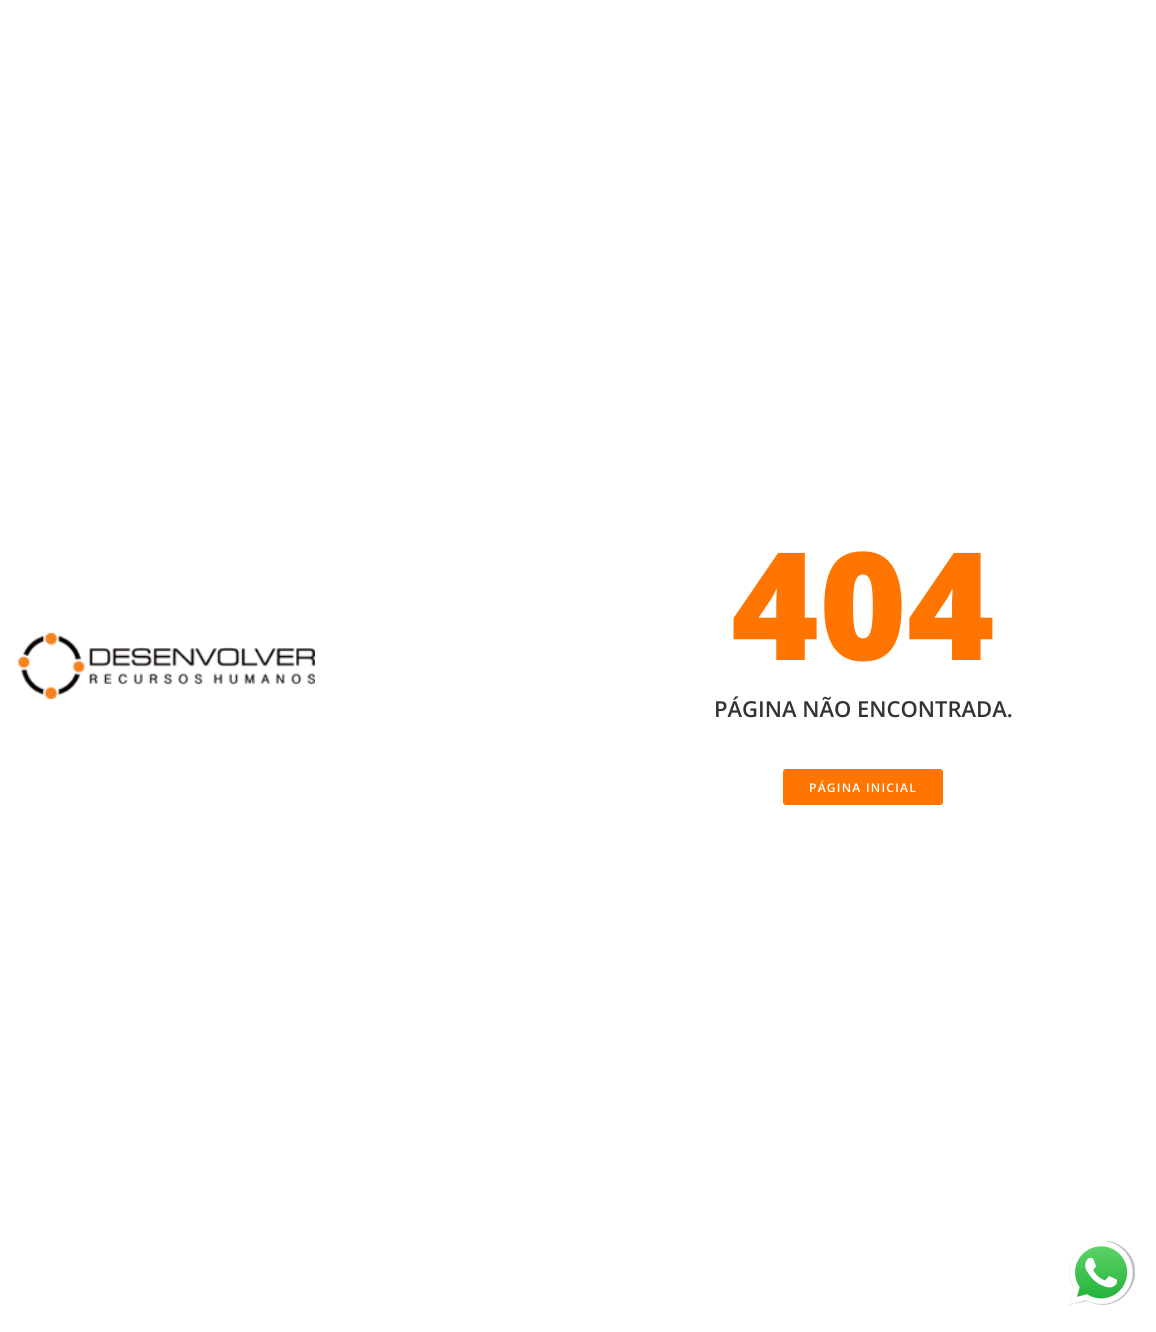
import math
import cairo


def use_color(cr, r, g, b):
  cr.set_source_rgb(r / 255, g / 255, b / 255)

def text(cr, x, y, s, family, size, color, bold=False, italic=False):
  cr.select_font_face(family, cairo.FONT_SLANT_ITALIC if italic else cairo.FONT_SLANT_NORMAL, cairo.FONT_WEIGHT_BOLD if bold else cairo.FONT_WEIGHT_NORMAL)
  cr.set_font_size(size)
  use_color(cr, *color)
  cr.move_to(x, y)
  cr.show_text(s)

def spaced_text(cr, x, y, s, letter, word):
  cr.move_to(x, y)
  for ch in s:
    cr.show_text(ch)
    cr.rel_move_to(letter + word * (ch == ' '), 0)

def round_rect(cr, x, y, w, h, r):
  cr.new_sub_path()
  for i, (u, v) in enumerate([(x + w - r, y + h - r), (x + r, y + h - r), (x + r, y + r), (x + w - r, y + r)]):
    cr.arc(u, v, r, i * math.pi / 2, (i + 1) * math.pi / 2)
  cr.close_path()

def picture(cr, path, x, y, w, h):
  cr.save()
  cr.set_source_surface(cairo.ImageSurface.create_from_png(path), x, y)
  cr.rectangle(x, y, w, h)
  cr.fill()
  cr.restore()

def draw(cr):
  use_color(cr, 255, 255, 255)
  cr.paint()
  picture(cr, "img_01.png", 18, 633, 297, 66)
  use_color(cr, 255, 117, 0)
  round_rect(cr, 783.5, 769.5, 159, 35, 2.5)
  cr.fill_preserve()
  cr.set_line_width(1)
  cr.stroke()
  cr.save()
  cr.rectangle(1071, 1241, 64, 64)
  cr.clip()
  gradient = cairo.RadialGradient(1103, 1273, 0, 1103, 1273, 45)
  gradient.add_color_stop_rgba(0, 0.196, 0.196, 0.196, 1)
  gradient.add_color_stop_rgba(1, 1, 1, 1, 1)
  cr.set_source(gradient)
  cr.new_path()
  cr.move_to(1126, 1250)
  cr.curve_to(1099, 1224, 1058, 1257, 1076, 1289)
  cr.line_to(1071, 1305)
  cr.line_to(1088, 1301)
  cr.curve_to(1119, 1318, 1152, 1276, 1126, 1250)
  cr.close_path()
  cr.fill()
  cr.restore()
  picture(cr, "img_02.png", 1069, 1241, 64, 64)
  text(cr, 731, 660, "404", "Open Sans ExtraBold", 150, (255, 117, 0))
  text(cr, 714, 717, "PÁGINA NÃO ENCONTRADA.", "Open Sans SemiBold", 22, (51, 51, 51))
  cr.set_font_size(12)
  use_color(cr, 255, 255, 255)
  spaced_text(cr, 809, 792, "PÁGINA INICIAL", 1.25, 0)


surface = cairo.ImageSurface(cairo.FORMAT_RGB24, 1156, 1332)
cr = cairo.Context(surface)
options = cairo.FontOptions()
options.set_hint_metrics(cairo.HINT_METRICS_OFF)
options.set_hint_style(cairo.HINT_STYLE_NONE)
cr.set_font_options(options)
cr.set_miter_limit(4)
draw(cr)
surface.write_to_png("out.png")
